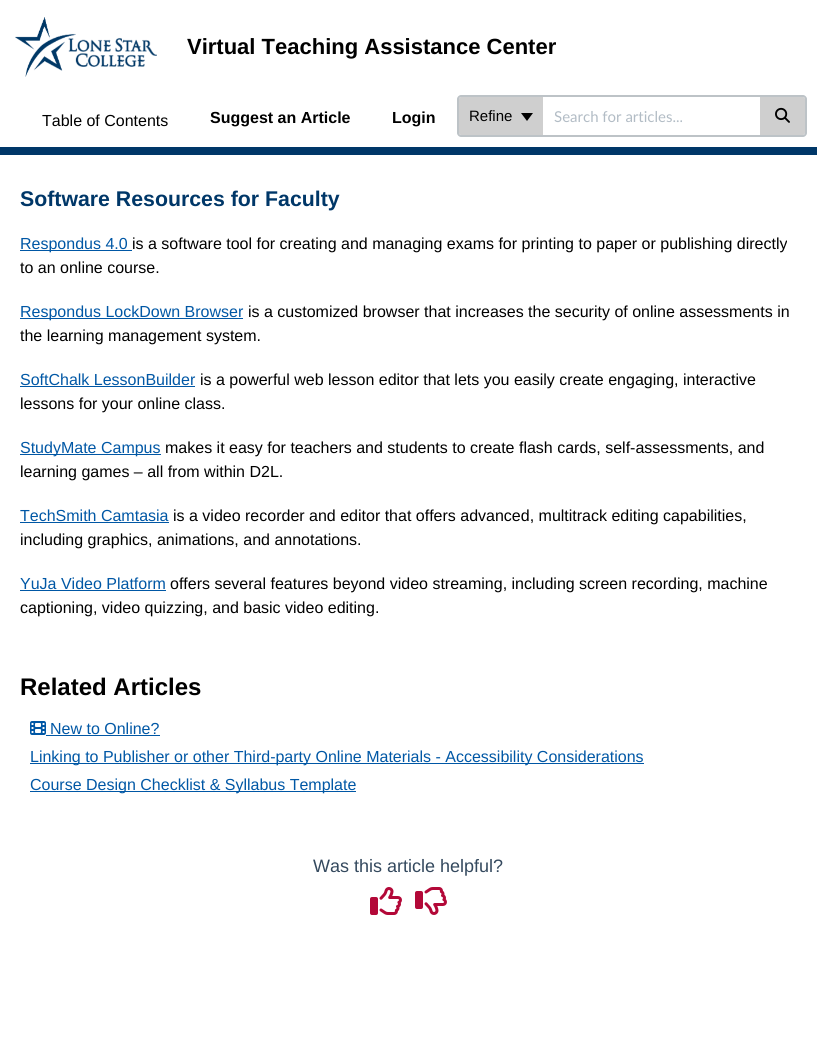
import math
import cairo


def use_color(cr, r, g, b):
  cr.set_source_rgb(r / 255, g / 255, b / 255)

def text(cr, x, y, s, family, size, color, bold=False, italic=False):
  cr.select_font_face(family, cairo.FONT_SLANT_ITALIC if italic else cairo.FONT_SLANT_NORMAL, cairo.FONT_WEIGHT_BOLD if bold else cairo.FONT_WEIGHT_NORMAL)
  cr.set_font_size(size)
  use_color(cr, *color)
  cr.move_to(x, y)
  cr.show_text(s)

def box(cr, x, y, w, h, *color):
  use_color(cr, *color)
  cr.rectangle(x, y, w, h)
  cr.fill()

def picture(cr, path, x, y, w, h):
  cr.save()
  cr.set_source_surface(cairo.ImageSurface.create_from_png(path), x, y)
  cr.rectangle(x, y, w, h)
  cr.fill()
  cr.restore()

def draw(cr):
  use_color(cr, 255, 255, 255)
  cr.paint()
  box(cr, 0, 147, 817, 8, 0, 55, 104)
  picture(cr, "img_01.png", 15, 17, 142, 60)
  cr.rectangle(541, 96, 221, 40)
  use_color(cr, 189, 195, 199)
  cr.stroke()
  use_color(cr, 207, 207, 207)
  cr.new_path()
  cr.move_to(461, 97)
  cr.line_to(543, 97)
  cr.line_to(543, 135)
  cr.line_to(461, 135)
  cr.curve_to(460, 135, 459, 134, 459, 133)
  cr.line_to(459, 99)
  cr.curve_to(459, 98, 460, 97, 461, 97)
  cr.close_path()
  cr.fill()
  use_color(cr, 189, 195, 199)
  cr.set_fill_rule(cairo.FILL_RULE_EVEN_ODD)
  cr.new_path()
  cr.move_to(461, 95)
  cr.line_to(543, 95)
  cr.line_to(543, 137)
  cr.line_to(461, 137)
  cr.curve_to(459, 137, 457, 135, 457, 133)
  cr.line_to(457, 99)
  cr.curve_to(457, 97, 459, 95, 461, 95)
  cr.close_path()
  cr.move_to(461, 97)
  cr.line_to(543, 97)
  cr.line_to(543, 135)
  cr.line_to(461, 135)
  cr.curve_to(460, 135, 459, 134, 459, 133)
  cr.line_to(459, 99)
  cr.curve_to(459, 98, 460, 97, 461, 97)
  cr.close_path()
  cr.fill()
  use_color(cr, 0, 0, 0)
  cr.set_fill_rule(cairo.FILL_RULE_WINDING)
  cr.new_path()
  cr.move_to(521, 113)
  cr.line_to(533, 113)
  cr.line_to(527, 121)
  cr.close_path()
  cr.fill()
  use_color(cr, 207, 207, 207)
  cr.new_path()
  cr.move_to(760, 97)
  cr.line_to(803, 97)
  cr.curve_to(804, 97, 805, 98, 805, 99)
  cr.line_to(805, 133)
  cr.curve_to(805, 134, 804, 135, 803, 135)
  cr.line_to(760, 135)
  cr.close_path()
  cr.fill()
  use_color(cr, 189, 195, 199)
  cr.set_fill_rule(cairo.FILL_RULE_EVEN_ODD)
  cr.new_path()
  cr.move_to(760, 95)
  cr.line_to(803, 95)
  cr.curve_to(805, 95, 807, 97, 807, 99)
  cr.line_to(807, 133)
  cr.curve_to(807, 135, 805, 137, 803, 137)
  cr.line_to(760, 137)
  cr.close_path()
  cr.move_to(760, 97)
  cr.line_to(803, 97)
  cr.curve_to(804, 97, 805, 98, 805, 99)
  cr.line_to(805, 133)
  cr.curve_to(805, 134, 804, 135, 803, 135)
  cr.line_to(760, 135)
  cr.close_path()
  cr.fill()
  picture(cr, "img_02.png", 775, 107, 15, 16)
  box(cr, 20, 250, 112, 1, 0, 87, 165)
  box(cr, 20, 318, 223, 1, 0, 87, 165)
  box(cr, 20, 386, 175, 1, 0, 87, 165)
  box(cr, 20, 454, 141, 1, 0, 87, 165)
  box(cr, 20, 522, 149, 1, 0, 87, 165)
  box(cr, 20, 590, 146, 1, 0, 87, 165)
  picture(cr, "img_03.png", 30, 721, 16, 14)
  box(cr, 46, 735, 114, 1, 0, 87, 165)
  box(cr, 30, 763, 614, 1, 0, 87, 165)
  box(cr, 30, 791, 326, 1, 0, 87, 165)
  picture(cr, "img_04.png", 370, 887, 32, 28)
  picture(cr, "img_05.png", 415, 887, 32, 28)
  text(cr, 187, 54, "Virtual Teaching Assistance Center", "Liberation Sans", 22, (0, 0, 0), bold=True)
  text(cr, 42, 126, "Table of Contents", "Liberation Sans", 16, (0, 0, 0))
  text(cr, 210, 123, "Suggest an Article", "Liberation Sans", 16, (0, 0, 0), bold=True)
  text(cr, 392, 123, "Login", "Liberation Sans", 16, (0, 0, 0), bold=True)
  text(cr, 469, 121, "Refine", "Liberation Sans", 15, (0, 0, 0))
  text(cr, 554, 122, "Search for articles...", "Lato", 15, (178, 188, 197))
  text(cr, 20, 206, "Software Resources for Faculty", "Liberation Sans", 21.3, (0, 55, 104), bold=True)
  text(cr, 20, 249, "Respondus 4.0", "Liberation Sans", 16, (0, 87, 165))
  text(cr, 132, 249, "is a software tool for creating and managing exams for printing to paper or publishing directly", "Liberation Sans", 16, (0, 0, 0))
  text(cr, 20, 273, "to an online course.", "Liberation Sans", 16, (0, 0, 0))
  text(cr, 20, 317, "Respondus LockDown Browser", "Liberation Sans", 16, (0, 87, 165))
  text(cr, 248, 317, "is a customized browser that increases the security of online assessments in", "Liberation Sans", 16, (0, 0, 0))
  text(cr, 20, 341, "the learning management system.", "Liberation Sans", 16, (0, 0, 0))
  text(cr, 20, 385, "SoftChalk LessonBuilder", "Liberation Sans", 16, (0, 87, 165))
  text(cr, 200, 385, "is a powerful web lesson editor that lets you easily create engaging, interactive", "Liberation Sans", 16, (0, 0, 0))
  text(cr, 20, 409, "lessons for your online class.", "Liberation Sans", 16, (0, 0, 0))
  text(cr, 20, 453, "StudyMate Campus", "Liberation Sans", 16, (0, 87, 165))
  text(cr, 165, 453, "makes it easy for teachers and students to create flash cards, self-assessments, and", "Liberation Sans", 16, (0, 0, 0))
  text(cr, 20, 477, "learning games – all from within D2L.", "Liberation Sans", 16, (0, 0, 0))
  text(cr, 20, 521, "TechSmith Camtasia", "Liberation Sans", 16, (0, 87, 165))
  text(cr, 173, 521, "is a video recorder and editor that offers advanced, multitrack editing capabilities,", "Liberation Sans", 16, (0, 0, 0))
  text(cr, 20, 545, "including graphics, animations, and annotations.", "Liberation Sans", 16, (0, 0, 0))
  text(cr, 20, 589, "YuJa Video Platform", "Liberation Sans", 16, (0, 87, 165))
  text(cr, 170, 589, "offers several features beyond video streaming, including screen recording, machine", "Liberation Sans", 16, (0, 0, 0))
  text(cr, 20, 613, "captioning, video quizzing, and basic video editing.", "Liberation Sans", 16, (0, 0, 0))
  text(cr, 20, 695, "Related Articles", "Liberation Sans", 24, (0, 0, 0), bold=True)
  text(cr, 50, 734, "New to Online?", "Liberation Sans", 16, (0, 87, 165))
  text(cr, 30, 762, "Linking to Publisher or other Third-party Online Materials - Accessibility Considerations", "Liberation Sans", 16, (0, 87, 165))
  text(cr, 30, 790, "Course Design Checklist & Syllabus Template", "Liberation Sans", 16, (0, 87, 165))
  text(cr, 313, 872, "Was this article helpful?", "Liberation Sans", 18, (52, 73, 94))


surface = cairo.ImageSurface(cairo.FORMAT_RGB24, 817, 1043)
cr = cairo.Context(surface)
options = cairo.FontOptions()
options.set_hint_metrics(cairo.HINT_METRICS_OFF)
options.set_hint_style(cairo.HINT_STYLE_NONE)
cr.set_font_options(options)
cr.set_miter_limit(4)
draw(cr)
surface.write_to_png("out.png")
